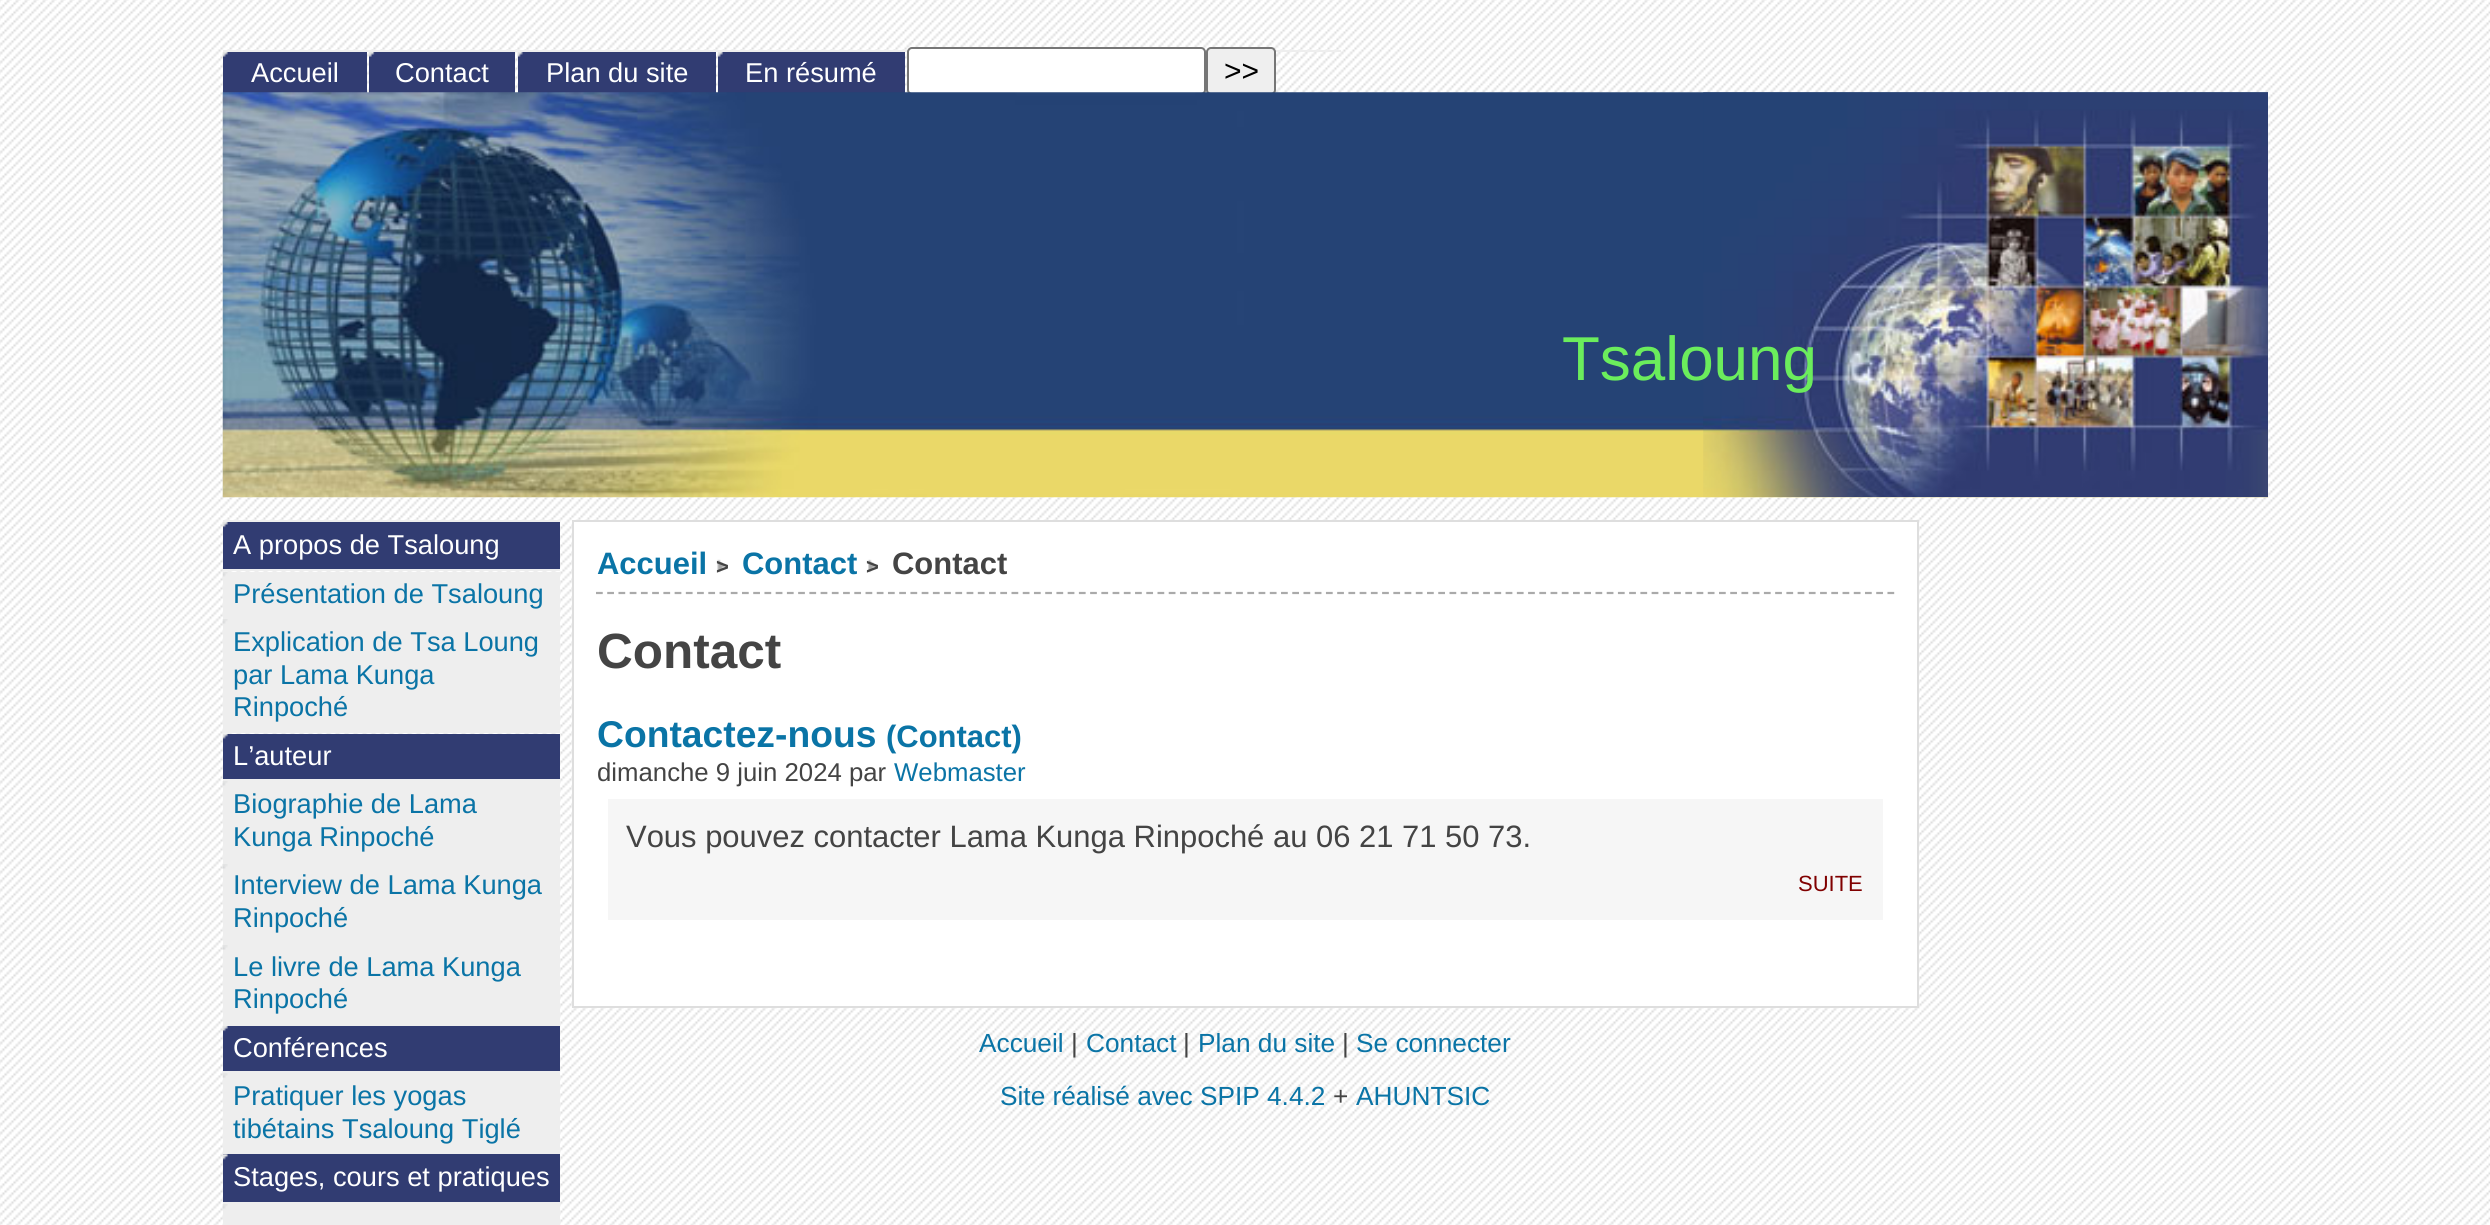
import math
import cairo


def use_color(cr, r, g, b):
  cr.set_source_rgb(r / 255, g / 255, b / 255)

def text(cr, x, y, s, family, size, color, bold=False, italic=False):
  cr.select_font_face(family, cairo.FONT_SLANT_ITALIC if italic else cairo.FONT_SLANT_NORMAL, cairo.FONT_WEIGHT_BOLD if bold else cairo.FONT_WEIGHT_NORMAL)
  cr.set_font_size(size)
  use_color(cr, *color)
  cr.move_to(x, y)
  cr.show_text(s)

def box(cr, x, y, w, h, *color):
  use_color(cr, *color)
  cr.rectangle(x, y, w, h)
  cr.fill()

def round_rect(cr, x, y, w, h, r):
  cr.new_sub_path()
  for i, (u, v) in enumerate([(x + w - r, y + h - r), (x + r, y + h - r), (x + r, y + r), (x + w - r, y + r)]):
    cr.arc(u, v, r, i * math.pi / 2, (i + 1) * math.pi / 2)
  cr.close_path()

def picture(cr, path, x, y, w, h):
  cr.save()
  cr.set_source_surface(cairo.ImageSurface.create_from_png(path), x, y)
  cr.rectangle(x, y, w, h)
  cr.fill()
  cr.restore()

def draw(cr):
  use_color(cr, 221, 221, 221)
  cr.paint()
  picture(cr, "img_01.png", 0, 0, 2490, 1225)
  box(cr, 223, 50, 1118, 2, 238, 238, 238)
  box(cr, 223, 52, 144, 41, 49, 60, 114)
  picture(cr, "img_02.png", 222, 52, 6, 5)
  box(cr, 369, 52, 146, 41, 49, 60, 114)
  picture(cr, "img_03.png", 369, 52, 6, 5)
  box(cr, 518, 52, 198, 41, 49, 60, 114)
  picture(cr, "img_04.png", 517, 52, 6, 5)
  box(cr, 718, 52, 187, 41, 49, 60, 114)
  picture(cr, "img_02.png", 717, 52, 6, 5)
  use_color(cr, 255, 255, 255)
  round_rect(cr, 908, 48, 297, 46, 4)
  cr.fill_preserve()
  use_color(cr, 118, 118, 118)
  cr.stroke()
  use_color(cr, 239, 239, 239)
  round_rect(cr, 1207, 48, 68, 46, 4)
  cr.fill_preserve()
  use_color(cr, 118, 118, 118)
  cr.stroke()
  box(cr, 223, 520, 337, 2, 238, 238, 238)
  box(cr, 223, 522, 337, 47, 49, 60, 114)
  picture(cr, "img_05.png", 222, 522, 6, 6)
  box(cr, 223, 569, 337, 2, 238, 238, 238)
  box(cr, 223, 572, 337, 161, 238, 238, 238)
  picture(cr, "img_06.png", 222, 571, 6, 6)
  picture(cr, "img_07.png", 222, 619, 6, 5)
  box(cr, 223, 734, 337, 45, 49, 60, 114)
  picture(cr, "img_08.png", 222, 733, 6, 6)
  box(cr, 223, 779, 337, 247, 238, 238, 238)
  picture(cr, "img_07.png", 222, 781, 6, 5)
  picture(cr, "img_09.png", 222, 864, 6, 5)
  picture(cr, "img_09.png", 222, 945, 6, 5)
  box(cr, 223, 1026, 337, 45, 49, 60, 114)
  picture(cr, "img_05.png", 222, 1026, 6, 6)
  box(cr, 223, 1071, 337, 83, 238, 238, 238)
  picture(cr, "img_10.png", 222, 1073, 6, 5)
  box(cr, 223, 1154, 337, 48, 49, 60, 114)
  picture(cr, "img_11.png", 222, 1154, 6, 6)
  box(cr, 223, 1202, 337, 23, 238, 238, 238)
  picture(cr, "img_07.png", 222, 1204, 6, 5)
  picture(cr, "img_12.png", 222, 92, 2046, 406)
  picture(cr, "img_13.png", 1703, 92, 565, 406)
  use_color(cr, 255, 255, 255)
  cr.rectangle(573, 521, 1345, 486)
  cr.fill_preserve()
  use_color(cr, 222, 222, 222)
  cr.stroke()
  picture(cr, "img_14.png", 717, 559, 9, 14)
  picture(cr, "img_15.png", 868, 559, 8, 14)
  cr.new_path()
  cr.move_to(596, 593)
  cr.line_to(1894.5, 593)
  use_color(cr, 170, 170, 170)
  cr.set_line_width(2.2)
  cr.set_dash([6.75, 4.48])
  cr.stroke()
  box(cr, 608, 799, 1275, 121, 246, 246, 246)
  text(cr, 251, 82, "Accueil", "Liberation Sans", 27.25, (255, 255, 255))
  text(cr, 395, 82, "Contact", "Liberation Sans", 27.25, (255, 255, 255))
  text(cr, 546, 82, "Plan du site", "Liberation Sans", 27.25, (255, 255, 255))
  text(cr, 745, 82, "En résumé", "Liberation Sans", 27.25, (255, 255, 255))
  text(cr, 1224, 81, ">>", "Liberation Sans", 30, (0, 0, 0))
  text(cr, 233, 554, "A propos de Tsaloung", "Liberation Sans", 27.25, (255, 255, 255))
  text(cr, 233, 603, "Présentation de Tsaloung", "Liberation Sans", 27.25, (10, 116, 166))
  text(cr, 233, 651, "Explication de Tsa Loung", "Liberation Sans", 27.25, (10, 116, 166))
  text(cr, 233, 684, "par Lama Kunga", "Liberation Sans", 27.25, (10, 116, 166))
  text(cr, 233, 716, "Rinpoché", "Liberation Sans", 27.25, (10, 116, 166))
  text(cr, 233, 765, "L’auteur", "Liberation Sans", 27.25, (255, 255, 255))
  text(cr, 233, 813, "Biographie de Lama", "Liberation Sans", 27.25, (10, 116, 166))
  text(cr, 233, 846, "Kunga Rinpoché", "Liberation Sans", 27.25, (10, 116, 166))
  text(cr, 233, 894, "Interview de Lama Kunga", "Liberation Sans", 27.25, (10, 116, 166))
  text(cr, 233, 927, "Rinpoché", "Liberation Sans", 27.25, (10, 116, 166))
  text(cr, 233, 976, "Le livre de Lama Kunga", "Liberation Sans", 27.25, (10, 116, 166))
  text(cr, 233, 1008, "Rinpoché", "Liberation Sans", 27.25, (10, 116, 166))
  text(cr, 233, 1057, "Conférences", "Liberation Sans", 27.25, (255, 255, 255))
  text(cr, 233, 1105, "Pratiquer les yogas", "Liberation Sans", 27.25, (10, 116, 166))
  text(cr, 233, 1138, "tibétains Tsaloung Tiglé", "Liberation Sans", 27.25, (10, 116, 166))
  text(cr, 233, 1186, "Stages, cours et pratiques", "Liberation Sans", 27.25, (255, 255, 255))
  text(cr, 1562, 380, "Tsaloung", "Liberation Sans", 62, (107, 237, 92))
  text(cr, 597, 574, "Accueil", "Liberation Sans", 30.95, (10, 116, 166), bold=True)
  text(cr, 742, 574, "Contact", "Liberation Sans", 30.95, (10, 116, 166), bold=True)
  text(cr, 892, 574, "Contact", "Liberation Sans", 30.95, (68, 68, 68), bold=True)
  text(cr, 716, 574, ">", "Liberation Sans", 22, (68, 68, 68), bold=True)
  text(cr, 866, 574, ">", "Liberation Sans", 22, (68, 68, 68), bold=True)
  text(cr, 597, 668, "Contact", "Liberation Sans", 49.5, (68, 68, 68), bold=True)
  text(cr, 597, 747, "Contactez-nous", "Liberation Sans", 37.25, (10, 116, 166), bold=True)
  text(cr, 886, 747, "(Contact)", "Liberation Sans", 30.95, (10, 116, 166), bold=True)
  text(cr, 597, 781, "dimanche 9 juin 2024 par", "Liberation Sans", 25.75, (68, 68, 68))
  text(cr, 894, 781, "Webmaster", "Liberation Sans", 25.75, (10, 116, 166))
  text(cr, 626, 847, "Vous pouvez contacter Lama Kunga Rinpoché au 06 21 71 50 73.", "Liberation Sans", 30.95, (68, 68, 68))
  text(cr, 1798, 891, "SUITE", "Liberation Sans", 22, (128, 0, 0))
  text(cr, 979, 1052, "Accueil", "Liberation Sans", 26.25, (10, 116, 166))
  text(cr, 1071, 1052, "|", "Liberation Sans", 26.25, (68, 68, 68))
  text(cr, 1086, 1052, "Contact", "Liberation Sans", 26.25, (10, 116, 166))
  text(cr, 1183, 1052, "|", "Liberation Sans", 26.25, (68, 68, 68))
  text(cr, 1198, 1052, "Plan du site", "Liberation Sans", 26.25, (10, 116, 166))
  text(cr, 1342, 1052, "|", "Liberation Sans", 26.25, (68, 68, 68))
  text(cr, 1356, 1052, "Se connecter", "Liberation Sans", 26.25, (10, 116, 166))
  text(cr, 1000, 1105, "Site réalisé avec SPIP 4.4.2", "Liberation Sans", 26.25, (10, 116, 166))
  text(cr, 1333, 1105, "+", "Liberation Sans", 26.25, (68, 68, 68))
  text(cr, 1356, 1105, "AHUNTSIC", "Liberation Sans", 26.25, (10, 116, 166))


surface = cairo.ImageSurface(cairo.FORMAT_RGB24, 2490, 1225)
cr = cairo.Context(surface)
options = cairo.FontOptions()
options.set_hint_metrics(cairo.HINT_METRICS_OFF)
options.set_hint_style(cairo.HINT_STYLE_NONE)
cr.set_font_options(options)
cr.set_miter_limit(4)
draw(cr)
surface.write_to_png("out.png")
